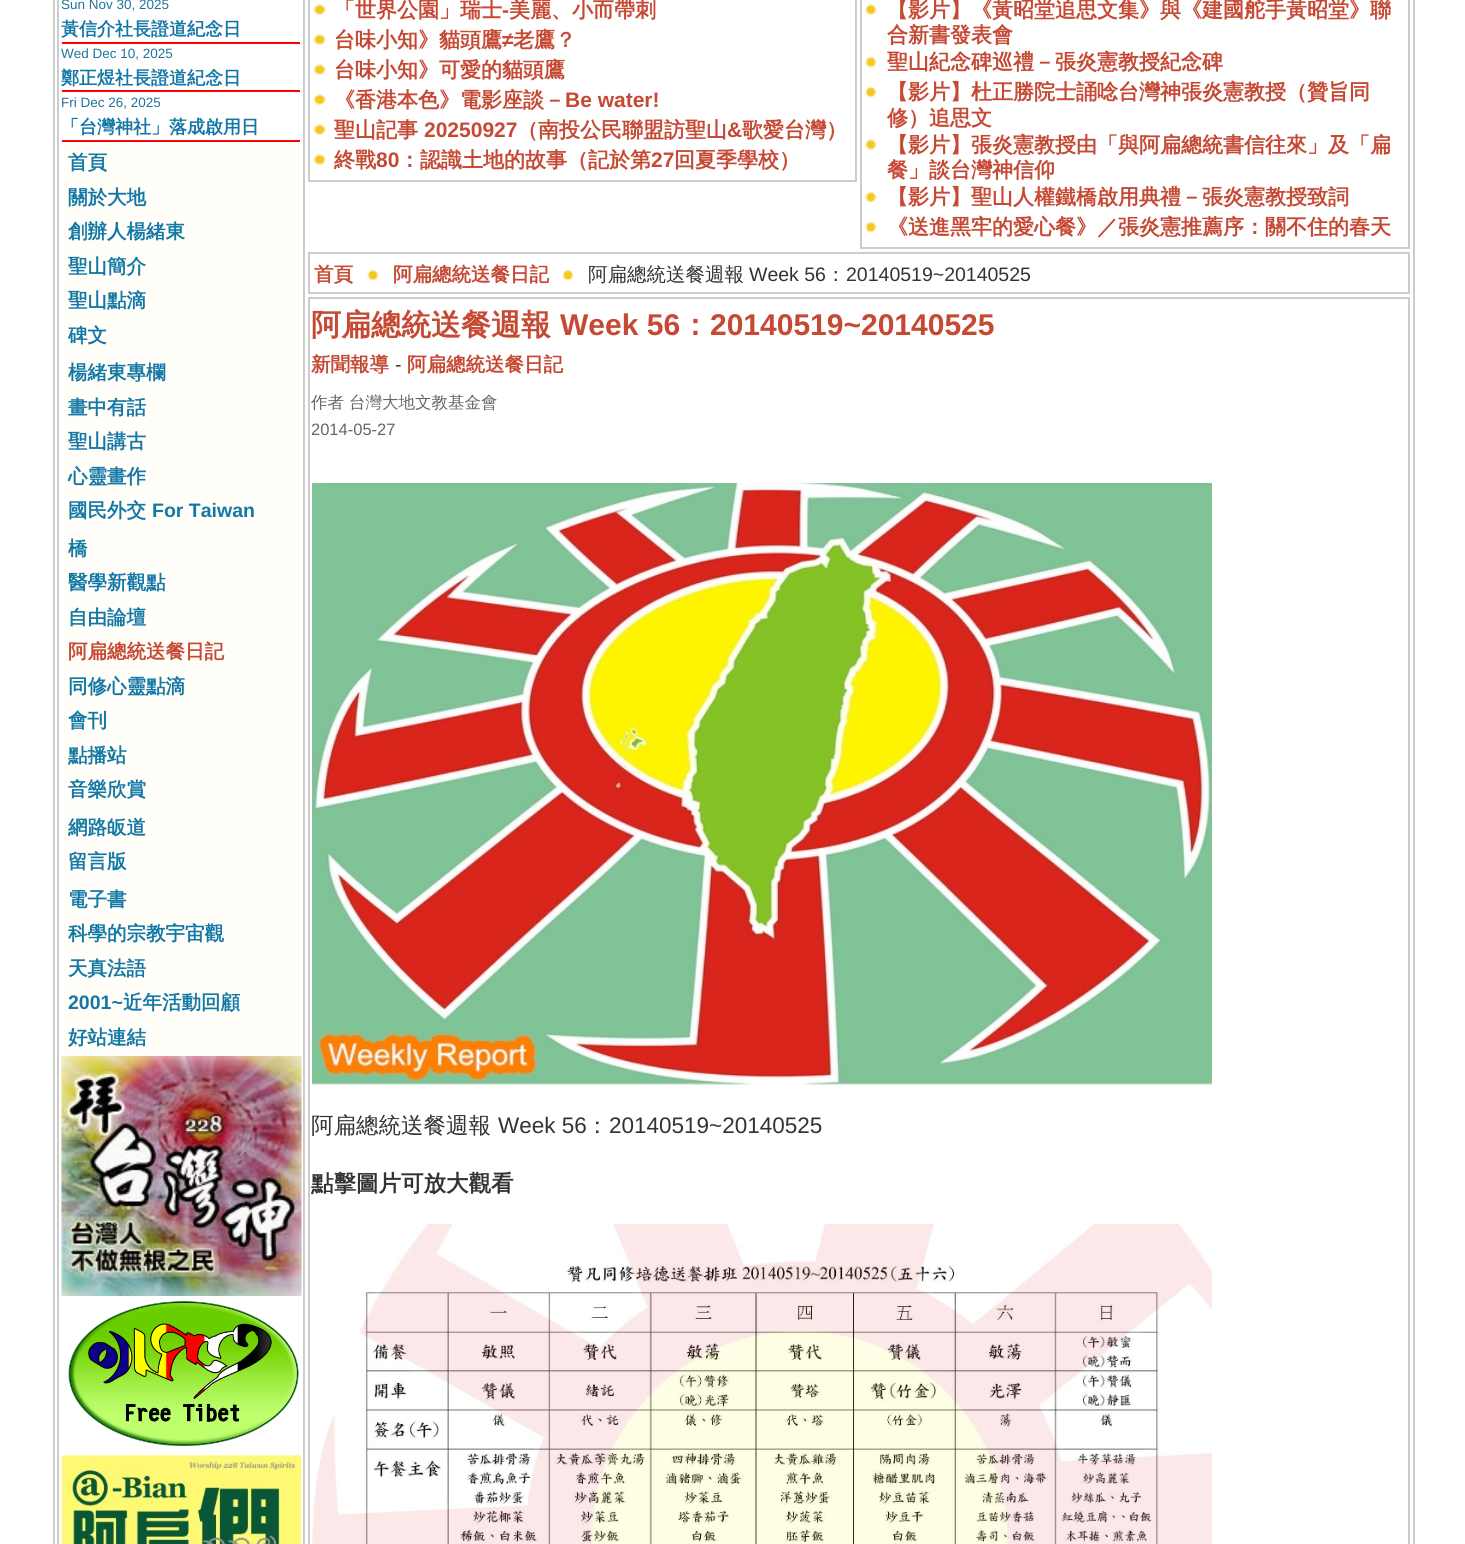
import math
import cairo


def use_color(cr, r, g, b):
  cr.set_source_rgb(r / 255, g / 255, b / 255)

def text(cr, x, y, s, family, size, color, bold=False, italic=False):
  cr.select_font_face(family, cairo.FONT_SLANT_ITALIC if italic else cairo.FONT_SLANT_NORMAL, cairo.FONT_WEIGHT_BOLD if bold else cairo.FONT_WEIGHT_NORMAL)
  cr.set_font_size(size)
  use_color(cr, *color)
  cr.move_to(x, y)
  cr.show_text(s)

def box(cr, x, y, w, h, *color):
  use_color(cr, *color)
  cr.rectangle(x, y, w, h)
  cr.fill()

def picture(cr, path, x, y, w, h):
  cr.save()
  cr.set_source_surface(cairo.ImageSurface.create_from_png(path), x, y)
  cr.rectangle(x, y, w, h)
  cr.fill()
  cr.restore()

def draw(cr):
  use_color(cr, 255, 255, 255)
  cr.paint()
  cr.rectangle(54, -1, 1360, 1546)
  use_color(cr, 204, 204, 204)
  cr.stroke()
  cr.rectangle(58, -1, 246, 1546)
  cr.stroke()
  box(cr, 62, 42, 238, 2, 255, 0, 0)
  box(cr, 62, 90, 238, 2, 255, 0, 0)
  box(cr, 62, 140, 238, 2, 255, 0, 0)
  box(cr, 62, 144, 238, 207, 255, 254, 248)
  box(cr, 62, 354, 238, 173, 255, 254, 248)
  box(cr, 62, 530, 238, 276, 255, 254, 248)
  box(cr, 62, 809, 238, 69, 255, 254, 248)
  box(cr, 62, 881, 238, 172, 255, 254, 248)
  picture(cr, "img_01.png", 61, 1056, 241, 240)
  picture(cr, "img_02.png", 68, 1301, 231, 145)
  picture(cr, "img_03.png", 61, 1455, 241, 89)
  cr.rectangle(309, -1, 547, 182)
  use_color(cr, 204, 204, 204)
  cr.stroke()
  picture(cr, "img_04.png", 313, 4, 13, 11)
  picture(cr, "img_04.png", 313, 34, 13, 11)
  picture(cr, "img_04.png", 313, 64, 13, 11)
  picture(cr, "img_04.png", 313, 94, 13, 11)
  picture(cr, "img_04.png", 313, 124, 13, 11)
  picture(cr, "img_04.png", 313, 154, 13, 11)
  cr.rectangle(861, -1, 548, 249)
  cr.stroke()
  picture(cr, "img_05.png", 865, 4, 12, 11)
  picture(cr, "img_06.png", 865, 56, 12, 12)
  picture(cr, "img_06.png", 865, 86, 12, 12)
  picture(cr, "img_05.png", 865, 139, 12, 11)
  picture(cr, "img_06.png", 865, 191, 12, 12)
  picture(cr, "img_06.png", 865, 221, 12, 12)
  cr.rectangle(309, 253, 1100, 40)
  cr.stroke()
  picture(cr, "img_07.png", 367, 269, 12, 12)
  picture(cr, "img_07.png", 562, 269, 12, 12)
  cr.rectangle(309, 298, 1100, 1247)
  cr.stroke()
  picture(cr, "img_08.png", 312, 483, 900, 602)
  picture(cr, "img_09.png", 312, 1224, 900, 320)
  text(cr, 61, 9, "Sun Nov 30, 2025", "Liberation Sans", 13.5, (33, 115, 154))
  text(cr, 61, 35, "黃信介社長證道紀念日", "WenQuanYi Zen Hei", 18, (20, 120, 167), bold=True)
  text(cr, 61, 58, "Wed Dec 10, 2025", "Liberation Sans", 13.5, (33, 115, 154))
  text(cr, 61, 84, "鄭正煜社長證道紀念日", "WenQuanYi Zen Hei", 18, (20, 120, 167), bold=True)
  text(cr, 61, 107, "Fri Dec 26, 2025", "Liberation Sans", 13.5, (33, 115, 154))
  text(cr, 61, 133, "「台灣神社」落成啟用日", "WenQuanYi Zen Hei", 18, (20, 120, 167), bold=True)
  text(cr, 68, 169, "首頁", "WenQuanYi Zen Hei", 19.5, (20, 120, 167), bold=True)
  text(cr, 68, 204, "關於大地", "WenQuanYi Zen Hei", 19.5, (20, 120, 167), bold=True)
  text(cr, 68, 238, "創辦人楊緒東", "WenQuanYi Zen Hei", 19.5, (20, 120, 167), bold=True)
  text(cr, 68, 273, "聖山簡介", "WenQuanYi Zen Hei", 19.5, (20, 120, 167), bold=True)
  text(cr, 68, 307, "聖山點滴", "WenQuanYi Zen Hei", 19.5, (20, 120, 167), bold=True)
  text(cr, 68, 342, "碑文", "WenQuanYi Zen Hei", 19.5, (20, 120, 167), bold=True)
  text(cr, 68, 379, "楊緒東專欄", "WenQuanYi Zen Hei", 19.5, (20, 120, 167), bold=True)
  text(cr, 68, 414, "畫中有話", "WenQuanYi Zen Hei", 19.5, (20, 120, 167), bold=True)
  text(cr, 68, 448, "聖山講古", "WenQuanYi Zen Hei", 19.5, (20, 120, 167), bold=True)
  text(cr, 68, 483, "心靈畫作", "WenQuanYi Zen Hei", 19.5, (20, 120, 167), bold=True)
  text(cr, 68, 517, "國民外交", "WenQuanYi Zen Hei", 19.5, (20, 120, 167), bold=True)
  text(cr, 152, 517, "For Taiwan", "Liberation Sans", 19.5, (20, 120, 167), bold=True)
  text(cr, 68, 555, "橋", "WenQuanYi Zen Hei", 19.5, (20, 120, 167), bold=True)
  text(cr, 68, 589, "醫學新觀點", "WenQuanYi Zen Hei", 19.5, (20, 120, 167), bold=True)
  text(cr, 68, 624, "自由論壇", "WenQuanYi Zen Hei", 19.5, (20, 120, 167), bold=True)
  text(cr, 68, 658, "阿扁總統送餐日記", "WenQuanYi Zen Hei", 19.5, (198, 73, 52), bold=True)
  text(cr, 68, 693, "同修心靈點滴", "WenQuanYi Zen Hei", 19.5, (20, 120, 167), bold=True)
  text(cr, 68, 727, "會刊", "WenQuanYi Zen Hei", 19.5, (20, 120, 167), bold=True)
  text(cr, 68, 762, "點播站", "WenQuanYi Zen Hei", 19.5, (20, 120, 167), bold=True)
  text(cr, 68, 796, "音樂欣賞", "WenQuanYi Zen Hei", 19.5, (20, 120, 167), bold=True)
  text(cr, 68, 834, "網路皈道", "WenQuanYi Zen Hei", 19.5, (20, 120, 167), bold=True)
  text(cr, 68, 868, "留言版", "WenQuanYi Zen Hei", 19.5, (20, 120, 167), bold=True)
  text(cr, 68, 906, "電子書", "WenQuanYi Zen Hei", 19.5, (20, 120, 167), bold=True)
  text(cr, 68, 940, "科學的宗教宇宙觀", "WenQuanYi Zen Hei", 19.5, (20, 120, 167), bold=True)
  text(cr, 68, 975, "天真法語", "WenQuanYi Zen Hei", 19.5, (20, 120, 167), bold=True)
  text(cr, 68, 1009, "2001~", "Liberation Sans", 19.5, (20, 120, 167), bold=True)
  text(cr, 123, 1009, "近年活動回顧", "WenQuanYi Zen Hei", 19.5, (20, 120, 167), bold=True)
  text(cr, 68, 1044, "好站連結", "WenQuanYi Zen Hei", 19.5, (20, 120, 167), bold=True)
  text(cr, 334, 17, "「世界公園」瑞士", "WenQuanYi Zen Hei", 21, (198, 73, 52), bold=True)
  text(cr, 502, 17, "-", "Liberation Sans", 21, (198, 73, 52), bold=True)
  text(cr, 509, 17, "美麗、小而帶刺", "WenQuanYi Zen Hei", 21, (198, 73, 52), bold=True)
  text(cr, 334, 47, "台味小知》貓頭鷹", "WenQuanYi Zen Hei", 21, (198, 73, 52), bold=True)
  text(cr, 502, 47, "≠", "Liberation Sans", 21, (198, 73, 52), bold=True)
  text(cr, 513, 47, "老鷹？", "WenQuanYi Zen Hei", 21, (198, 73, 52), bold=True)
  text(cr, 334, 77, "台味小知》可愛的貓頭鷹", "WenQuanYi Zen Hei", 21, (198, 73, 52), bold=True)
  text(cr, 334, 107, "《香港本色》電影座談－", "WenQuanYi Zen Hei", 21, (198, 73, 52), bold=True)
  text(cr, 565, 107, "Be water!", "Liberation Sans", 21, (198, 73, 52), bold=True)
  text(cr, 334, 137, "聖山記事", "WenQuanYi Zen Hei", 21, (198, 73, 52), bold=True)
  text(cr, 424, 137, "20250927", "Liberation Sans", 21, (198, 73, 52), bold=True)
  text(cr, 517, 137, "（南投公民聯盟訪聖山", "WenQuanYi Zen Hei", 21, (198, 73, 52), bold=True)
  text(cr, 727, 137, "&", "Liberation Sans", 21, (198, 73, 52), bold=True)
  text(cr, 742, 137, "歌愛台灣）", "WenQuanYi Zen Hei", 21, (198, 73, 52), bold=True)
  text(cr, 334, 167, "終戰", "WenQuanYi Zen Hei", 21, (198, 73, 52), bold=True)
  text(cr, 376, 167, "80", "Liberation Sans", 21, (198, 73, 52), bold=True)
  text(cr, 399, 167, "：認識土地的故事（記於第", "WenQuanYi Zen Hei", 21, (198, 73, 52), bold=True)
  text(cr, 651, 167, "27", "Liberation Sans", 21, (198, 73, 52), bold=True)
  text(cr, 674, 167, "回夏季學校）", "WenQuanYi Zen Hei", 21, (198, 73, 52), bold=True)
  text(cr, 887, 17, "【影片】《黃昭堂追思文集》與《建國舵手黃昭堂》聯", "WenQuanYi Zen Hei", 21, (198, 73, 52), bold=True)
  text(cr, 887, 42, "合新書發表會", "WenQuanYi Zen Hei", 21, (198, 73, 52), bold=True)
  text(cr, 887, 69, "聖山紀念碑巡禮－張炎憲教授紀念碑", "WenQuanYi Zen Hei", 21, (198, 73, 52), bold=True)
  text(cr, 887, 99, "【影片】杜正勝院士誦唸台灣神張炎憲教授（贊旨同", "WenQuanYi Zen Hei", 21, (198, 73, 52), bold=True)
  text(cr, 887, 125, "修）追思文", "WenQuanYi Zen Hei", 21, (198, 73, 52), bold=True)
  text(cr, 887, 152, "【影片】張炎憲教授由「與阿扁總統書信往來」及「扁", "WenQuanYi Zen Hei", 21, (198, 73, 52), bold=True)
  text(cr, 887, 177, "餐」談台灣神信仰", "WenQuanYi Zen Hei", 21, (198, 73, 52), bold=True)
  text(cr, 887, 204, "【影片】聖山人權鐵橋啟用典禮－張炎憲教授致詞", "WenQuanYi Zen Hei", 21, (198, 73, 52), bold=True)
  text(cr, 887, 234, "《送進黑牢的愛心餐》／張炎憲推薦序：關不住的春天", "WenQuanYi Zen Hei", 21, (198, 73, 52), bold=True)
  text(cr, 314, 281, "首頁", "WenQuanYi Zen Hei", 19.5, (198, 73, 52), bold=True)
  text(cr, 393, 281, "阿扁總統送餐日記", "WenQuanYi Zen Hei", 19.5, (198, 73, 52), bold=True)
  text(cr, 588, 281, "阿扁總統送餐週報", "WenQuanYi Zen Hei Medium", 19.5, (51, 51, 51))
  text(cr, 749, 281, "Week 56", "Liberation Sans", 19.5, (51, 51, 51))
  text(cr, 826, 281, "：", "WenQuanYi Zen Hei Medium", 19.5, (51, 51, 51))
  text(cr, 846, 281, "20140519~20140525", "Liberation Sans", 19.5, (51, 51, 51))
  text(cr, 311, 335, "阿扁總統送餐週報", "WenQuanYi Zen Hei", 30, (198, 73, 52), bold=True)
  text(cr, 560, 335, "Week 56", "Liberation Sans", 30, (198, 73, 52), bold=True)
  text(cr, 680, 335, "：", "WenQuanYi Zen Hei", 30, (198, 73, 52), bold=True)
  text(cr, 710, 335, "20140519~20140525", "Liberation Sans", 30, (198, 73, 52), bold=True)
  text(cr, 311, 371, "新聞報導", "WenQuanYi Zen Hei", 19.5, (198, 73, 52), bold=True)
  text(cr, 395, 371, "-", "Liberation Sans", 19.5, (51, 51, 51))
  text(cr, 407, 371, "阿扁總統送餐日記", "WenQuanYi Zen Hei", 19.5, (198, 73, 52), bold=True)
  text(cr, 311, 408, "作者 台灣大地文教基金會", "WenQuanYi Zen Hei Medium", 16.5, (102, 102, 102))
  text(cr, 311, 435, "2014-05-27", "Liberation Sans", 16.5, (102, 102, 102))
  text(cr, 311, 1133, "阿扁總統送餐週報", "WenQuanYi Zen Hei Medium", 22.5, (51, 51, 51))
  text(cr, 498, 1133, "Week 56", "Liberation Sans", 22.5, (51, 51, 51))
  text(cr, 586, 1133, "：", "WenQuanYi Zen Hei Medium", 22.5, (51, 51, 51))
  text(cr, 609, 1133, "20140519~20140525", "Liberation Sans", 22.5, (51, 51, 51))
  text(cr, 311, 1191, "點擊圖片可放大觀看", "WenQuanYi Zen Hei", 22.5, (51, 51, 51), bold=True)


surface = cairo.ImageSurface(cairo.FORMAT_RGB24, 1465, 1544)
cr = cairo.Context(surface)
options = cairo.FontOptions()
options.set_hint_metrics(cairo.HINT_METRICS_OFF)
options.set_hint_style(cairo.HINT_STYLE_NONE)
cr.set_font_options(options)
cr.set_miter_limit(4)
draw(cr)
surface.write_to_png("out.png")
